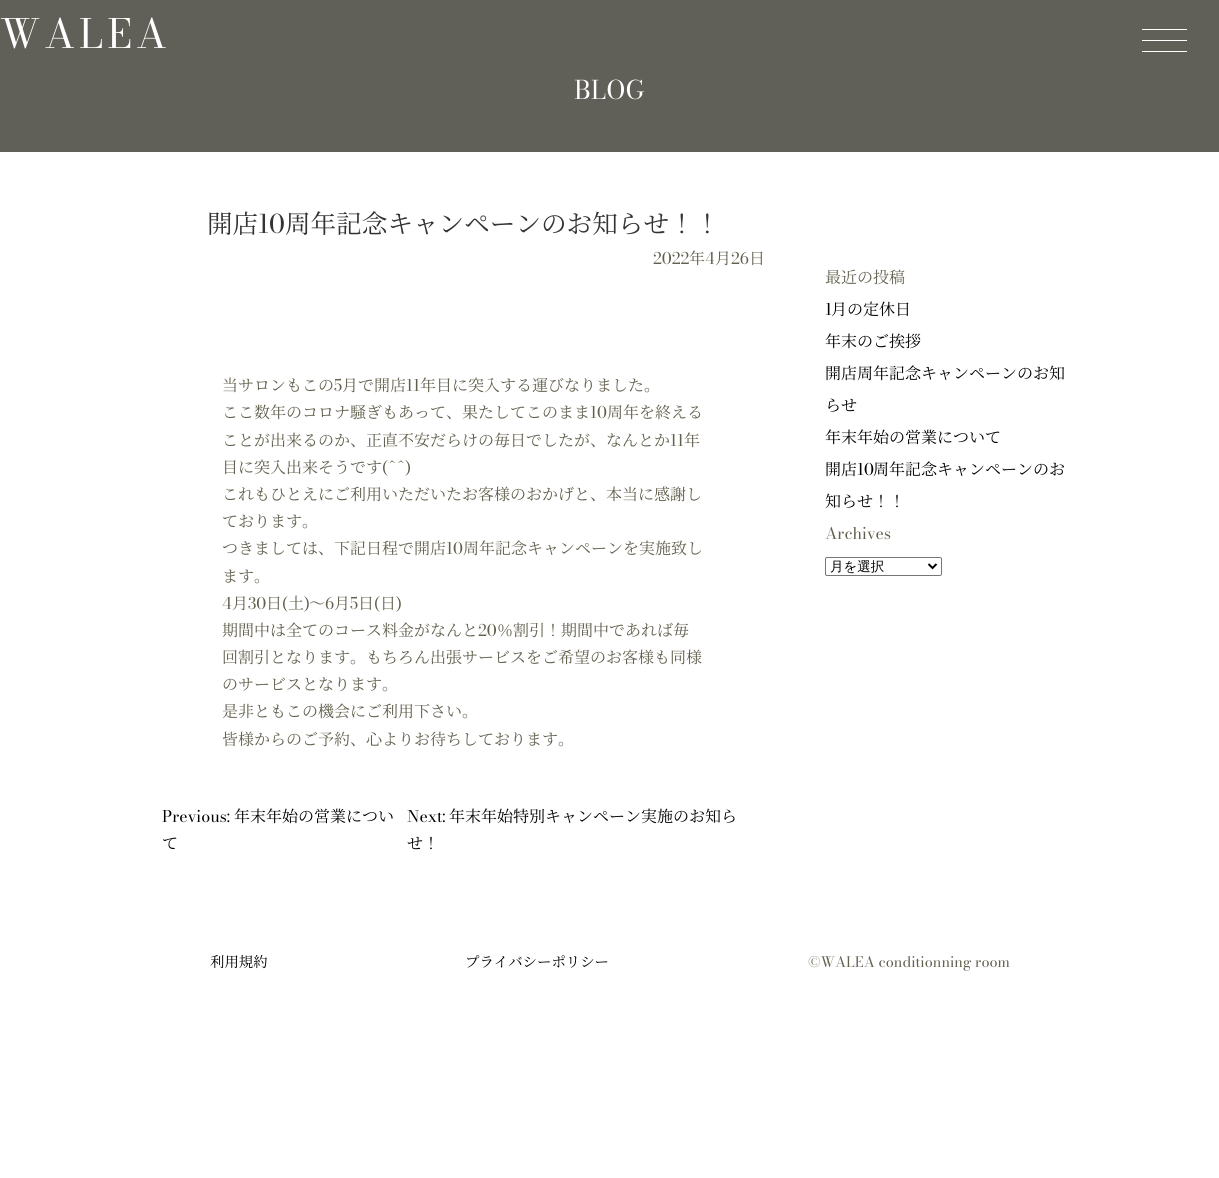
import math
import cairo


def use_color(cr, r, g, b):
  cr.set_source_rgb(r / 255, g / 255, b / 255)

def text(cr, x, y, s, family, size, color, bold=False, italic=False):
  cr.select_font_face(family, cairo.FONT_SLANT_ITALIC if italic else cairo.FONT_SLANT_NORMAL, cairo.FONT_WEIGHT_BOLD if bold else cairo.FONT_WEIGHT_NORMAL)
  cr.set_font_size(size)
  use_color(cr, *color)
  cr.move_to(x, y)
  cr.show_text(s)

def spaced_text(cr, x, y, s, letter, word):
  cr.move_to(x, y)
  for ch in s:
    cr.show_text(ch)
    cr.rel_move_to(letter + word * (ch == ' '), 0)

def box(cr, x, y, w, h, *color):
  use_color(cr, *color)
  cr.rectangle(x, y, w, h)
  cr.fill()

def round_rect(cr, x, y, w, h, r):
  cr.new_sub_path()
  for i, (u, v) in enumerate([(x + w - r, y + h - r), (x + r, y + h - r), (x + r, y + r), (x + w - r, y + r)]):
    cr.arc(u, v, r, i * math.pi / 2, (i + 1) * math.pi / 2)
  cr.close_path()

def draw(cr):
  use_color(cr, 255, 255, 255)
  cr.paint()
  box(cr, 0, 0, 1219, 152, 96, 96, 88)
  box(cr, 1142, 29, 45, 1, 255, 255, 255)
  box(cr, 1142, 40, 45, 1, 255, 255, 255)
  box(cr, 1142, 51, 45, 1, 255, 255, 255)
  round_rect(cr, 825.5, 557.5, 116, 18, 1.5)
  use_color(cr, 118, 118, 118)
  cr.set_line_width(1)
  cr.stroke()
  cr.new_path()
  cr.move_to(928.5, 564)
  cr.line_to(932.5, 568)
  cr.line_to(936.5, 564)
  use_color(cr, 0, 0, 0)
  cr.set_line_width(2)
  cr.stroke()
  cr.select_font_face("Bodoni Moda")
  cr.set_font_size(40)
  use_color(cr, 255, 255, 255)
  spaced_text(cr, 0, 48, "WALEA", 4, 0)
  text(cr, 574, 99, "BLOG", "Bodoni Moda", 25.6, (255, 255, 255))
  text(cr, 207, 233, "開店", "Noto Serif JP", 25.6, (51, 51, 51))
  text(cr, 258, 233, "10", "Bodoni Moda", 25.6, (51, 51, 51))
  text(cr, 285, 233, "周年記念キャンペーンのお知らせ！！", "Noto Serif JP", 25.6, (51, 51, 51))
  text(cr, 653, 264, "2022", "Bodoni Moda", 16, (98, 95, 77))
  text(cr, 689, 264, "年", "Noto Serif JP", 16, (98, 95, 77))
  text(cr, 705, 264, "4", "Bodoni Moda", 16, (98, 95, 77))
  text(cr, 715, 264, "月", "Noto Serif JP", 16, (98, 95, 77))
  text(cr, 731, 264, "26", "Bodoni Moda", 16, (98, 95, 77))
  text(cr, 749, 264, "日", "Noto Serif JP", 16, (98, 95, 77))
  text(cr, 222, 391, "当サロンもこの", "Noto Serif JP", 16, (98, 95, 77))
  text(cr, 334, 391, "5", "Bodoni Moda", 16, (98, 95, 77))
  text(cr, 342, 391, "月で開店", "Noto Serif JP", 16, (98, 95, 77))
  text(cr, 406, 391, "11", "Bodoni Moda", 16, (98, 95, 77))
  text(cr, 420, 391, "年目に突入する運びなりました。", "Noto Serif JP", 16, (98, 95, 77))
  text(cr, 222, 418, "ここ数年のコロナ騒ぎもあって、果たしてこのまま", "Noto Serif JP", 16, (98, 95, 77))
  text(cr, 590, 418, "10", "Bodoni Moda", 16, (98, 95, 77))
  text(cr, 607, 418, "周年を終える", "Noto Serif JP", 16, (98, 95, 77))
  text(cr, 222, 446, "ことが出来るのか、正直不安だらけの毎日でしたが、なんとか", "Noto Serif JP", 16, (98, 95, 77))
  text(cr, 670, 446, "11", "Bodoni Moda", 16, (98, 95, 77))
  text(cr, 684, 446, "年", "Noto Serif JP", 16, (98, 95, 77))
  text(cr, 222, 473, "目に突入出来そうです", "Noto Serif JP", 16, (98, 95, 77))
  text(cr, 382, 473, "(^^)", "Bodoni Moda", 16, (98, 95, 77))
  text(cr, 222, 500, "これもひとえにご利用いただいたお客様のおかげと、本当に感謝し", "Noto Serif JP", 16, (98, 95, 77))
  text(cr, 222, 527, "ております。", "Noto Serif JP", 16, (98, 95, 77))
  text(cr, 222, 554, "つきましては、下記日程で開店", "Noto Serif JP", 16, (98, 95, 77))
  text(cr, 446, 554, "10", "Bodoni Moda", 16, (98, 95, 77))
  text(cr, 463, 554, "周年記念キャンペーンを実施致し", "Noto Serif JP", 16, (98, 95, 77))
  text(cr, 222, 582, "ます。", "Noto Serif JP", 16, (98, 95, 77))
  text(cr, 222, 609, "4", "Bodoni Moda", 16, (98, 95, 77))
  text(cr, 232, 609, "月", "Noto Serif JP", 16, (98, 95, 77))
  text(cr, 248, 609, "30", "Bodoni Moda", 16, (98, 95, 77))
  text(cr, 266, 609, "日", "Noto Serif JP", 16, (98, 95, 77))
  text(cr, 282, 609, "(", "Bodoni Moda", 16, (98, 95, 77))
  text(cr, 288, 609, "土", "Noto Serif JP", 16, (98, 95, 77))
  text(cr, 304, 609, ")", "Bodoni Moda", 16, (98, 95, 77))
  text(cr, 309, 609, "〜", "Noto Serif JP", 16, (98, 95, 77))
  text(cr, 325, 609, "6", "Bodoni Moda", 16, (98, 95, 77))
  text(cr, 334, 609, "月", "Noto Serif JP", 16, (98, 95, 77))
  text(cr, 350, 609, "5", "Bodoni Moda", 16, (98, 95, 77))
  text(cr, 358, 609, "日", "Noto Serif JP", 16, (98, 95, 77))
  text(cr, 374, 609, "(", "Bodoni Moda", 16, (98, 95, 77))
  text(cr, 380, 609, "日", "Noto Serif JP", 16, (98, 95, 77))
  text(cr, 396, 609, ")", "Bodoni Moda", 16, (98, 95, 77))
  text(cr, 222, 636, "期間中は全てのコース料金がなんと", "Noto Serif JP", 16, (98, 95, 77))
  text(cr, 478, 636, "20", "Bodoni Moda", 16, (98, 95, 77))
  text(cr, 497, 636, "％割引！期間中であれば毎", "Noto Serif JP", 16, (98, 95, 77))
  text(cr, 222, 663, "回割引となります。もちろん出張サービスをご希望のお客様も同様", "Noto Serif JP", 16, (98, 95, 77))
  text(cr, 222, 690, "のサービスとなります。", "Noto Serif JP", 16, (98, 95, 77))
  text(cr, 222, 717, "是非ともこの機会にご利用下さい。", "Noto Serif JP", 16, (98, 95, 77))
  text(cr, 222, 745, "皆様からのご予約、心よりお待ちしております。", "Noto Serif JP", 16, (98, 95, 77))
  text(cr, 162, 822, "Previous:", "Bodoni Moda", 16, (0, 0, 0))
  text(cr, 234, 822, "年末年始の営業につい", "Noto Serif JP", 16, (0, 0, 0))
  text(cr, 162, 849, "て", "Noto Serif JP", 16, (0, 0, 0))
  text(cr, 407, 822, "Next:", "Bodoni Moda", 16, (0, 0, 0))
  text(cr, 449, 822, "年末年始特別キャンペーン実施のお知ら", "Noto Serif JP", 16, (0, 0, 0))
  text(cr, 407, 849, "せ！", "Noto Serif JP", 16, (0, 0, 0))
  text(cr, 825, 283, "最近の投稿", "Noto Serif JP", 16, (98, 95, 77))
  text(cr, 825, 315, "1", "Bodoni Moda", 16, (0, 0, 0))
  text(cr, 831, 315, "月の定休日", "Noto Serif JP", 16, (0, 0, 0))
  text(cr, 825, 347, "年末のご挨拶", "Noto Serif JP", 16, (0, 0, 0))
  text(cr, 825, 379, "開店周年記念キャンペーンのお知", "Noto Serif JP", 16, (0, 0, 0))
  text(cr, 825, 411, "らせ", "Noto Serif JP", 16, (0, 0, 0))
  text(cr, 825, 443, "年末年始の営業について", "Noto Serif JP", 16, (0, 0, 0))
  text(cr, 825, 475, "開店", "Noto Serif JP", 16, (0, 0, 0))
  text(cr, 857, 475, "10", "Bodoni Moda", 16, (0, 0, 0))
  text(cr, 873, 475, "周年記念キャンペーンのお", "Noto Serif JP", 16, (0, 0, 0))
  text(cr, 825, 507, "知らせ！！", "Noto Serif JP", 16, (0, 0, 0))
  text(cr, 825, 539, "Archives", "Bodoni Moda", 16, (98, 95, 77))
  text(cr, 830, 571, "月を選択", "WenQuanYi Zen Hei Medium", 13.5, (0, 0, 0))
  text(cr, 210, 967, "利用規約", "Noto Serif JP", 14.4, (0, 0, 0))
  text(cr, 465, 967, "プライバシーポリシー", "Noto Serif JP", 14.4, (0, 0, 0))
  text(cr, 808, 967, "©WALEA conditionning room", "Bodoni Moda", 14.4, (98, 95, 77))


surface = cairo.ImageSurface(cairo.FORMAT_RGB24, 1219, 1178)
cr = cairo.Context(surface)
options = cairo.FontOptions()
options.set_hint_metrics(cairo.HINT_METRICS_OFF)
options.set_hint_style(cairo.HINT_STYLE_NONE)
cr.set_font_options(options)
cr.set_miter_limit(4)
draw(cr)
surface.write_to_png("out.png")
